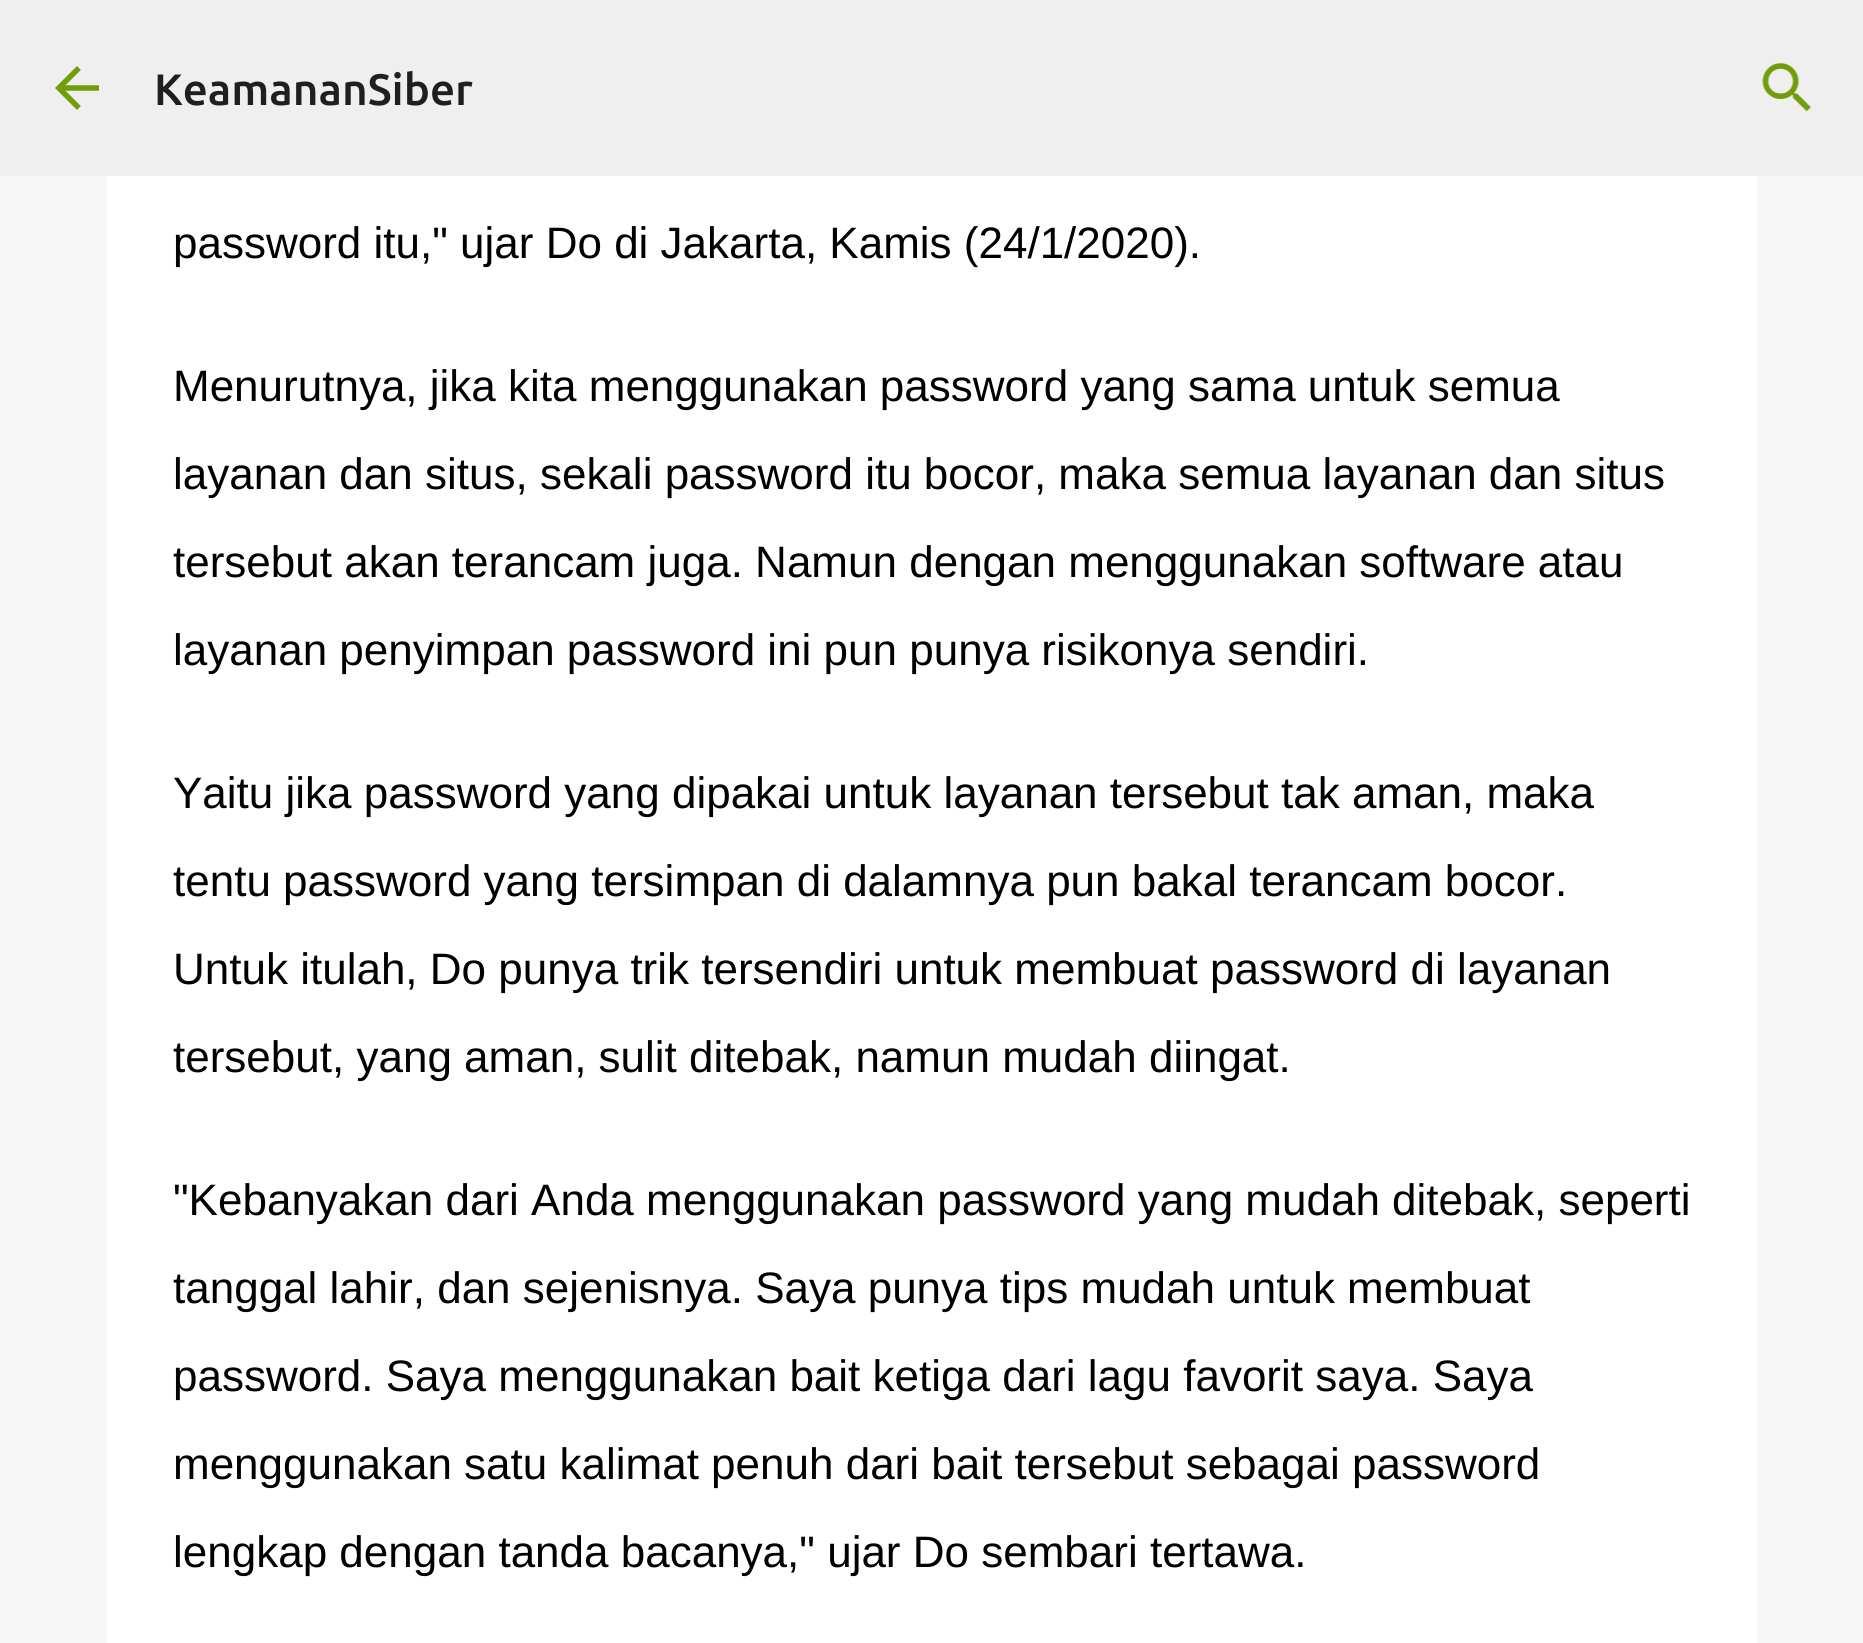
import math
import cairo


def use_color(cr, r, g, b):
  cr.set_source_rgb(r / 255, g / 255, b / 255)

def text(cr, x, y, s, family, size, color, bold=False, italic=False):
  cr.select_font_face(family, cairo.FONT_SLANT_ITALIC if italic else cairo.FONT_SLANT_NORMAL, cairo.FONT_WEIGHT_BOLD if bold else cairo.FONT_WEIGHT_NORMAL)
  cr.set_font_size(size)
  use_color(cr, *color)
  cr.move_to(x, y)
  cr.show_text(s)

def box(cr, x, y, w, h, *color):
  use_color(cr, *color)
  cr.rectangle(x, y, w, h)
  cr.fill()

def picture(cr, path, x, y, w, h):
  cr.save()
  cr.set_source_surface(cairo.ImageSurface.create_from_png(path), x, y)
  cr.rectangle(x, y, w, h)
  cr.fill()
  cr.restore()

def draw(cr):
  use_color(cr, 247, 247, 247)
  cr.paint()
  box(cr, 0, 0, 1863, 176, 239, 239, 239)
  picture(cr, "img_01.png", 55, 66, 44, 44)
  picture(cr, "img_02.png", 1762, 63, 50, 49)
  box(cr, 107, 176, 1650, 1467, 255, 255, 255)
  text(cr, 154, 105, "KeamananSiber", "Ubuntu Medium", 44, (31, 31, 31))
  text(cr, 173, 258, "password itu,\" ujar Do di Jakarta, Kamis (24/1/2020).", "Liberation Sans", 44, (0, 0, 0))
  text(cr, 173, 401, "Menurutnya, jika kita menggunakan password yang sama untuk semua", "Liberation Sans", 44, (0, 0, 0))
  text(cr, 173, 489, "layanan dan situs, sekali password itu bocor, maka semua layanan dan situs", "Liberation Sans", 44, (0, 0, 0))
  text(cr, 173, 577, "tersebut akan terancam juga. Namun dengan menggunakan software atau", "Liberation Sans", 44, (0, 0, 0))
  text(cr, 173, 665, "layanan penyimpan password ini pun punya risikonya sendiri.", "Liberation Sans", 44, (0, 0, 0))
  text(cr, 173, 808, "Yaitu jika password yang dipakai untuk layanan tersebut tak aman, maka", "Liberation Sans", 44, (0, 0, 0))
  text(cr, 173, 896, "tentu password yang tersimpan di dalamnya pun bakal terancam bocor.", "Liberation Sans", 44, (0, 0, 0))
  text(cr, 173, 984, "Untuk itulah, Do punya trik tersendiri untuk membuat password di layanan", "Liberation Sans", 44, (0, 0, 0))
  text(cr, 173, 1072, "tersebut, yang aman, sulit ditebak, namun mudah diingat.", "Liberation Sans", 44, (0, 0, 0))
  text(cr, 173, 1215, "\"Kebanyakan dari Anda menggunakan password yang mudah ditebak, seperti", "Liberation Sans", 44, (0, 0, 0))
  text(cr, 173, 1303, "tanggal lahir, dan sejenisnya. Saya punya tips mudah untuk membuat", "Liberation Sans", 44, (0, 0, 0))
  text(cr, 173, 1391, "password. Saya menggunakan bait ketiga dari lagu favorit saya. Saya", "Liberation Sans", 44, (0, 0, 0))
  text(cr, 173, 1479, "menggunakan satu kalimat penuh dari bait tersebut sebagai password", "Liberation Sans", 44, (0, 0, 0))
  text(cr, 173, 1567, "lengkap dengan tanda bacanya,\" ujar Do sembari tertawa.", "Liberation Sans", 44, (0, 0, 0))


surface = cairo.ImageSurface(cairo.FORMAT_RGB24, 1863, 1643)
cr = cairo.Context(surface)
options = cairo.FontOptions()
options.set_hint_metrics(cairo.HINT_METRICS_OFF)
options.set_hint_style(cairo.HINT_STYLE_NONE)
cr.set_font_options(options)
cr.set_miter_limit(4)
draw(cr)
surface.write_to_png("out.png")
